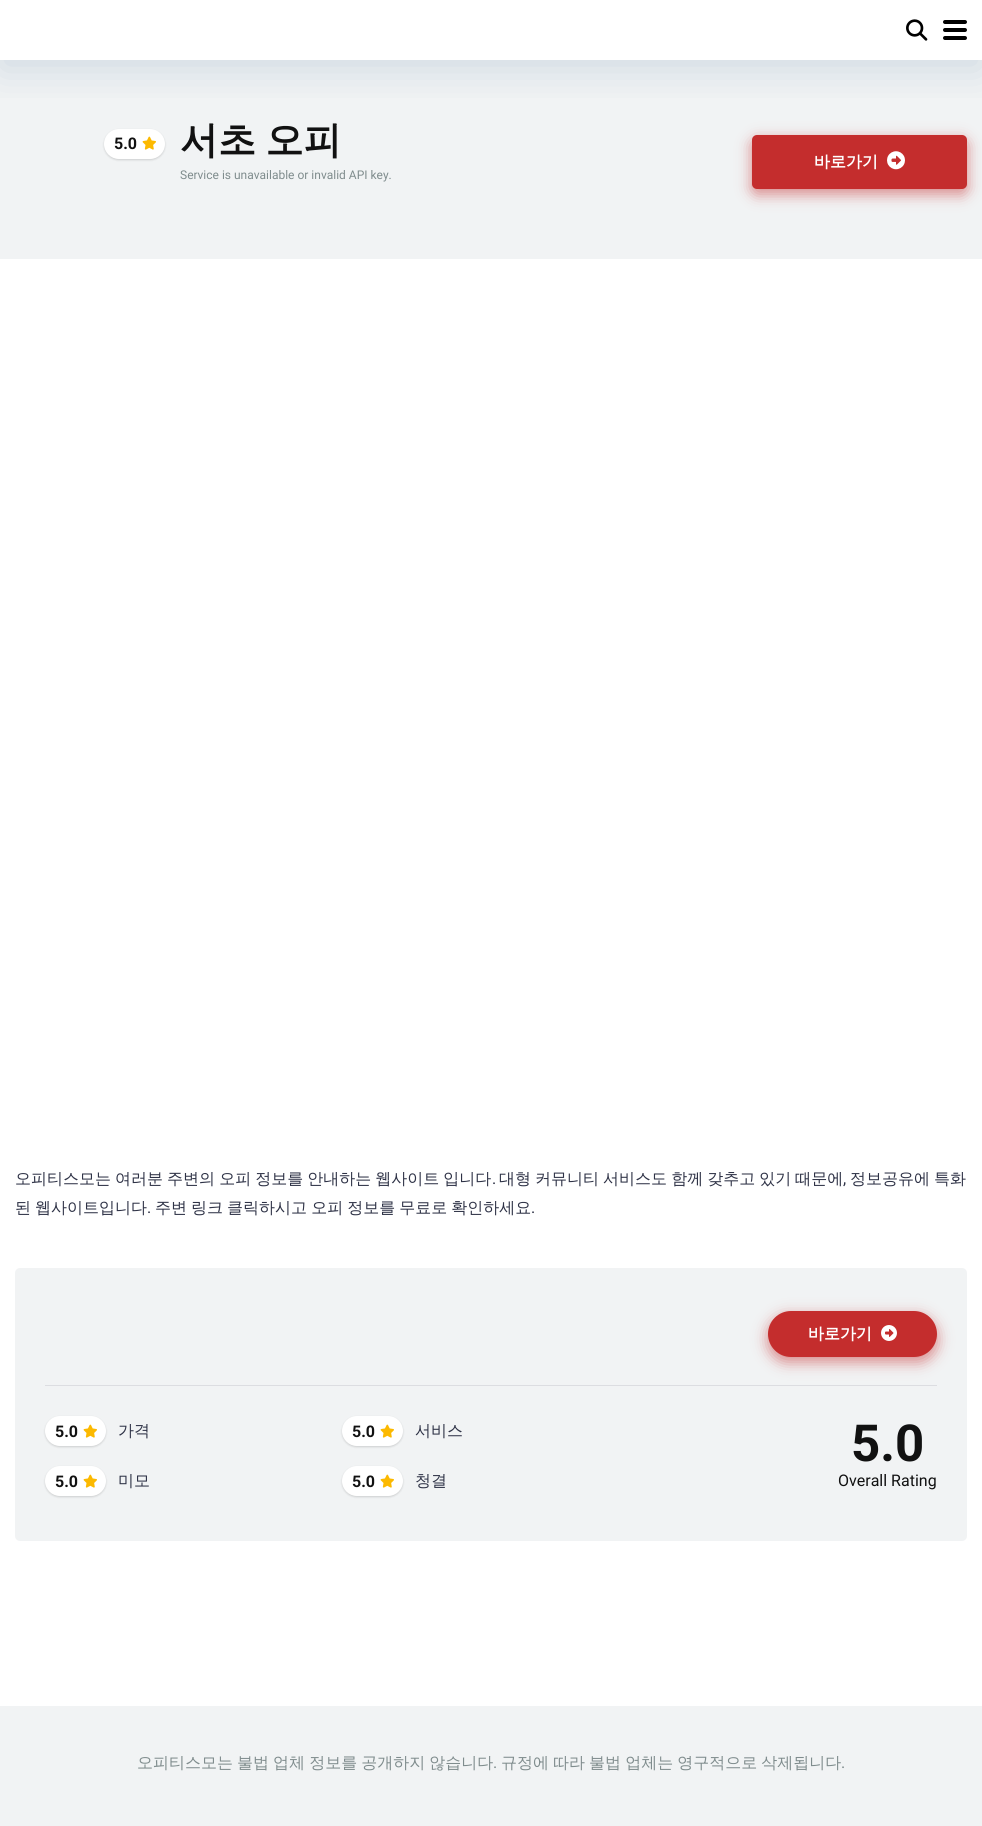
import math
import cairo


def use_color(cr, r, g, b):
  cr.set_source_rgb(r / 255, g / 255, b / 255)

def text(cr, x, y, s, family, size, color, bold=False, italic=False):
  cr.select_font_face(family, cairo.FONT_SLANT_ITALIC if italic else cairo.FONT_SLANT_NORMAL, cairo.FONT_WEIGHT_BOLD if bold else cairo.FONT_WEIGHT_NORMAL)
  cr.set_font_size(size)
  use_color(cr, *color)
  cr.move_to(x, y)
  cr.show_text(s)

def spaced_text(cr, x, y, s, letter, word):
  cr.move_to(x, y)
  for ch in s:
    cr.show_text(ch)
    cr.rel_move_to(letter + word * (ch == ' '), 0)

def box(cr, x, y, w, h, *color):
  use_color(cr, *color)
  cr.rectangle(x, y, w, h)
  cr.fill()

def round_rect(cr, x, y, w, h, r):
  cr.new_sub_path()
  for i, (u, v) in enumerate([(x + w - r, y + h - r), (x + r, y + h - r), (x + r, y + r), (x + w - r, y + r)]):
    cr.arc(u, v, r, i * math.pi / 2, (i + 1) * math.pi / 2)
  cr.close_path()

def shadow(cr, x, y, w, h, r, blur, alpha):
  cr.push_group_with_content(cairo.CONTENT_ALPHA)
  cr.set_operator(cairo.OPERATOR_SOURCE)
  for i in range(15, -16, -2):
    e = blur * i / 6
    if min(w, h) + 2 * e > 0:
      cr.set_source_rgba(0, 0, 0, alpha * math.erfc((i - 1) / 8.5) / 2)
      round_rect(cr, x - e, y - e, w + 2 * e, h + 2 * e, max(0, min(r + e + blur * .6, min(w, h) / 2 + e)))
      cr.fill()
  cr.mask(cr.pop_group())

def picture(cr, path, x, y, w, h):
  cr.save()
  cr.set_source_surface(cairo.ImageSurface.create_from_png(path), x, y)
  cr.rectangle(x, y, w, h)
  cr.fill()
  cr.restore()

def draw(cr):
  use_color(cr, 255, 255, 255)
  cr.paint()
  box(cr, 0, 60, 982, 199, 241, 243, 244)
  use_color(cr, 0, 0, 0)
  shadow(cr, 104, 130, 61, 30, 15, 1, 0.15)
  use_color(cr, 255, 255, 255)
  round_rect(cr, 104, 129, 61, 30, 15)
  cr.fill()
  cr.save()
  cr.rectangle(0, 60, 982, 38)
  cr.clip()
  use_color(cr, 109, 141, 173)
  shadow(cr, 0, 10, 982, 60, 0, 20, 0.25)
  cr.restore()
  picture(cr, "img_01.png", 906, 19, 22, 22)
  use_color(cr, 0, 0, 0)
  round_rect(cr, 943, 20, 24, 4, 2)
  cr.fill()
  round_rect(cr, 943, 28, 24, 4, 2)
  cr.fill()
  round_rect(cr, 943, 36, 24, 4, 2)
  cr.fill()
  picture(cr, "img_02.png", 142, 136, 14, 14)
  use_color(cr, 196, 45, 45)
  shadow(cr, 752, 140, 215, 54, 5, 7.5, 0.55)
  use_color(cr, 196, 45, 45)
  round_rect(cr, 752, 135, 215, 54, 5)
  cr.fill()
  picture(cr, "img_03.png", 887, 151, 18, 19)
  use_color(cr, 241, 243, 244)
  round_rect(cr, 15, 1268, 952, 273, 5)
  cr.fill()
  use_color(cr, 196, 45, 45)
  shadow(cr, 768, 1316, 169, 46, 23, 7.5, 0.55)
  use_color(cr, 196, 45, 45)
  round_rect(cr, 768, 1311, 169, 46, 23)
  cr.fill()
  picture(cr, "img_04.png", 881, 1325, 16, 16)
  box(cr, 45, 1385, 892, 1, 220, 221, 225)
  use_color(cr, 0, 0, 0)
  shadow(cr, 45, 1417, 61, 30, 15, 1, 0.15)
  use_color(cr, 255, 255, 255)
  round_rect(cr, 45, 1416, 61, 30, 15)
  cr.fill()
  picture(cr, "img_02.png", 83, 1424, 14, 14)
  use_color(cr, 0, 0, 0)
  shadow(cr, 342, 1417, 61, 30, 15, 1, 0.15)
  use_color(cr, 255, 255, 255)
  round_rect(cr, 342, 1416, 61, 30, 15)
  cr.fill()
  picture(cr, "img_02.png", 380, 1424, 14, 14)
  use_color(cr, 0, 0, 0)
  shadow(cr, 45, 1467, 61, 30, 15, 1, 0.15)
  use_color(cr, 255, 255, 255)
  round_rect(cr, 45, 1466, 61, 30, 15)
  cr.fill()
  picture(cr, "img_02.png", 83, 1474, 14, 14)
  use_color(cr, 0, 0, 0)
  shadow(cr, 342, 1467, 61, 30, 15, 1, 0.15)
  use_color(cr, 255, 255, 255)
  round_rect(cr, 342, 1466, 61, 30, 15)
  cr.fill()
  picture(cr, "img_02.png", 380, 1474, 14, 14)
  box(cr, 0, 1706, 982, 120, 241, 243, 244)
  text(cr, 114, 149, "5.0", "Roboto", 16, (17, 17, 17), bold=True)
  cr.select_font_face("WenQuanYi Zen Hei", cairo.FONT_SLANT_NORMAL, cairo.FONT_WEIGHT_BOLD)
  cr.set_font_size(38)
  spaced_text(cr, 180, 153, "서초 오피", 0, -2)
  text(cr, 180, 179, "Service is unavailable or invalid API key.", "Roboto", 12, (127, 140, 141))
  text(cr, 814, 167, "바로가기", "WenQuanYi Zen Hei", 16, (255, 255, 255), bold=True)
  cr.select_font_face("WenQuanYi Zen Hei Medium")
  use_color(cr, 46, 50, 70)
  spaced_text(cr, 15, 1184, "오피티스모는 여러분 주변의 오피 정보를 안내하는 웹사이트 입니다", 0, -0.75)
  text(cr, 492, 1184, ".", "Roboto", 16, (46, 50, 70))
  cr.select_font_face("WenQuanYi Zen Hei Medium")
  spaced_text(cr, 499, 1184, "대형 커뮤니티 서비스도 함께 갖추고 있기 때문에", 0, -0.75)
  text(cr, 843, 1184, ",", "Roboto", 16, (46, 50, 70))
  cr.select_font_face("WenQuanYi Zen Hei Medium")
  spaced_text(cr, 850, 1184, "정보공유에 특화", 0, -0.75)
  spaced_text(cr, 15, 1213, "된 웹사이트입니다", 0, -0.75)
  text(cr, 147, 1213, ".", "Roboto", 16, (46, 50, 70))
  cr.select_font_face("WenQuanYi Zen Hei Medium")
  spaced_text(cr, 155, 1213, "주변 링크 클릭하시고 오피 정보를 무료로 확인하세요", 0, -0.75)
  text(cr, 531, 1213, ".", "Roboto", 16, (46, 50, 70))
  text(cr, 808, 1339, "바로가기", "WenQuanYi Zen Hei", 16, (255, 255, 255), bold=True)
  text(cr, 55, 1437, "5.0", "Roboto", 16, (17, 17, 17), bold=True)
  text(cr, 118, 1436, "가격", "WenQuanYi Zen Hei Medium", 16, (46, 50, 70))
  text(cr, 352, 1437, "5.0", "Roboto", 16, (17, 17, 17), bold=True)
  text(cr, 415, 1436, "서비스", "WenQuanYi Zen Hei Medium", 16, (46, 50, 70))
  text(cr, 55, 1487, "5.0", "Roboto", 16, (17, 17, 17), bold=True)
  text(cr, 118, 1486, "미모", "WenQuanYi Zen Hei Medium", 16, (46, 50, 70))
  text(cr, 352, 1487, "5.0", "Roboto", 16, (17, 17, 17), bold=True)
  text(cr, 415, 1486, "청결", "WenQuanYi Zen Hei Medium", 16, (46, 50, 70))
  text(cr, 851, 1461, "5.0", "Roboto", 51, (17, 17, 17), bold=True)
  text(cr, 838, 1486, "Overall Rating", "Roboto", 16, (17, 17, 17))
  cr.select_font_face("WenQuanYi Zen Hei Medium")
  use_color(cr, 127, 140, 141)
  spaced_text(cr, 137, 1768, "오피티스모는 불법 업체 정보를 공개하지 않습니다", 0, -0.75)
  text(cr, 493, 1768, ".", "Roboto", 16, (127, 140, 141))
  cr.select_font_face("WenQuanYi Zen Hei Medium")
  spaced_text(cr, 501, 1768, "규정에 따라 불법 업체는 영구적으로 삭제됩니다", 0, -0.75)
  text(cr, 841, 1768, ".", "Roboto", 16, (127, 140, 141))


surface = cairo.ImageSurface(cairo.FORMAT_RGB24, 982, 1826)
cr = cairo.Context(surface)
options = cairo.FontOptions()
options.set_hint_metrics(cairo.HINT_METRICS_OFF)
options.set_hint_style(cairo.HINT_STYLE_NONE)
cr.set_font_options(options)
cr.set_miter_limit(4)
draw(cr)
surface.write_to_png("out.png")
